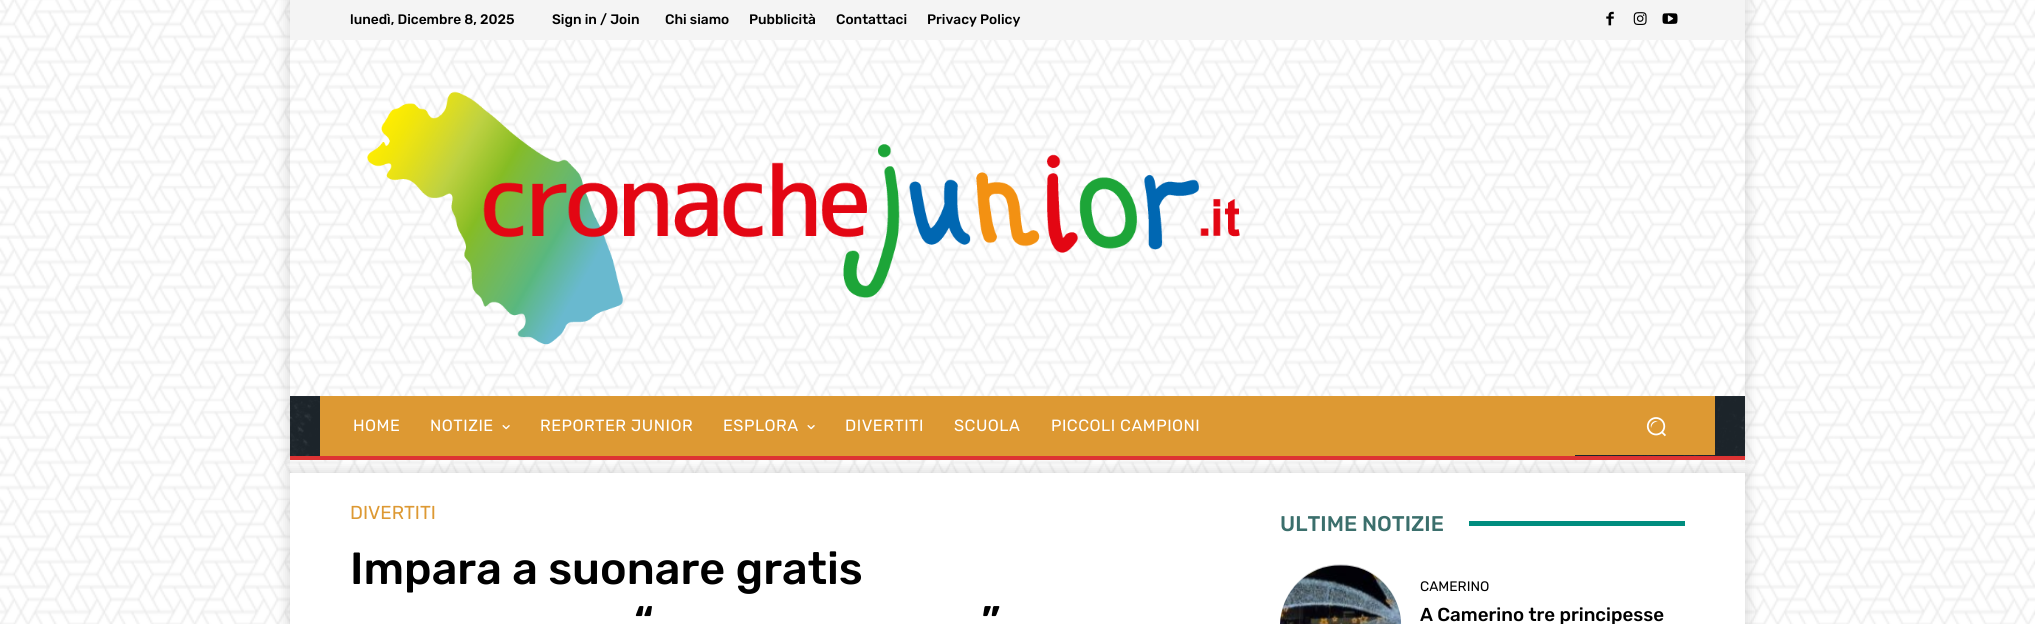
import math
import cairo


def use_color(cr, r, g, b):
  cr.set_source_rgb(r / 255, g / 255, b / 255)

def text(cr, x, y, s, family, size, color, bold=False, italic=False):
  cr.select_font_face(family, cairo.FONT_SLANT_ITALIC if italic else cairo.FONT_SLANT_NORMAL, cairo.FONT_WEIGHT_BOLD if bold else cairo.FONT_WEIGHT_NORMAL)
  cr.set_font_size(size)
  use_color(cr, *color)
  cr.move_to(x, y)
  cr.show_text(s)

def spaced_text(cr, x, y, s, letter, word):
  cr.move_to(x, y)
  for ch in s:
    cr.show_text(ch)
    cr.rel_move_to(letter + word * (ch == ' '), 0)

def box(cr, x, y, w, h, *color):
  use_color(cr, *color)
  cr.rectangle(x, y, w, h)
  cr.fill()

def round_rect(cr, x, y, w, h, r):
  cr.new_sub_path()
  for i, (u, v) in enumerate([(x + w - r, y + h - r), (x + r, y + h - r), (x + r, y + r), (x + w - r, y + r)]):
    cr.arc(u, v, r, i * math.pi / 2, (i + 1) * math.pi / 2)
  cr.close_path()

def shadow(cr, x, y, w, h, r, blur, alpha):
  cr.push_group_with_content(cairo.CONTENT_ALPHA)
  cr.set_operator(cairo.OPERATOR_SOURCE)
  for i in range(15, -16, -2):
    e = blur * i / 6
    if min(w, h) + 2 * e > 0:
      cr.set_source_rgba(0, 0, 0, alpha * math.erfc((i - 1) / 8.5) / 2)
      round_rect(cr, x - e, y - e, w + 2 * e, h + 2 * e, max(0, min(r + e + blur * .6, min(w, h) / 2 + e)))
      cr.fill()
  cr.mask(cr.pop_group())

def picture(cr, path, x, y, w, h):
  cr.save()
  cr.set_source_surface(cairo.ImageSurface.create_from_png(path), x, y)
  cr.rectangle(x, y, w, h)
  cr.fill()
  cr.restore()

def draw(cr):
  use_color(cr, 255, 255, 255)
  cr.paint()
  picture(cr, "img_01.png", 0, 0, 2035, 624)
  use_color(cr, 0, 0, 0)
  shadow(cr, 286, 469, 1463, 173, 0, 6, 0.12)
  box(cr, 290, 473, 1455, 151, 255, 255, 255)
  cr.save()
  cr.set_fill_rule(cairo.FILL_RULE_EVEN_ODD)
  cr.new_path()
  cr.move_to(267, 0)
  cr.line_to(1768, 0)
  cr.line_to(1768, 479)
  cr.line_to(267, 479)
  cr.close_path()
  cr.move_to(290, 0)
  cr.line_to(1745, 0)
  cr.line_to(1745, 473)
  cr.line_to(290, 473)
  cr.close_path()
  cr.clip()
  use_color(cr, 0, 0, 0)
  shadow(cr, 286, -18, 1463, 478, 0, 6, 0.12)
  cr.restore()
  box(cr, 290, 0, 1455, 40, 244, 244, 244)
  picture(cr, "img_02.png", 1606, 11, 8, 15)
  picture(cr, "img_03.png", 1633, 12, 14, 13)
  picture(cr, "img_04.png", 1662, 13, 16, 11)
  picture(cr, "img_05.png", 367, 91, 873, 254)
  box(cr, 290, 396, 1455, 60, 35, 45, 53)
  picture(cr, "img_06.png", 290, 396, 1455, 60)
  box(cr, 320, 396, 1255, 60, 221, 153, 51)
  picture(cr, "img_07.png", 502, 425, 8, 5)
  picture(cr, "img_07.png", 807, 425, 8, 5)
  box(cr, 1575, 396, 140, 59, 221, 153, 51)
  picture(cr, "img_08.png", 1646, 417, 20, 20)
  box(cr, 290, 456, 1455, 4, 221, 51, 51)
  box(cr, 1469, 521, 216, 5, 0, 141, 127)
  picture(cr, "img_09.png", 1280, 564, 122, 60)
  text(cr, 350, 24, "lunedì, Dicembre 8, 2025", "Rubik Medium", 13.75, (0, 0, 0))
  text(cr, 552, 24, "Sign in / Join", "Rubik Medium", 13.75, (0, 0, 0))
  text(cr, 665, 24, "Chi siamo", "Rubik Medium", 13.75, (0, 0, 0))
  text(cr, 749, 24, "Pubblicità", "Rubik Medium", 13.75, (0, 0, 0))
  text(cr, 836, 24, "Contattaci", "Rubik Medium", 13.75, (0, 0, 0))
  text(cr, 927, 24, "Privacy Policy", "Rubik Medium", 13.75, (0, 0, 0))
  cr.select_font_face("Rubik")
  cr.set_font_size(16.25)
  use_color(cr, 255, 255, 255)
  spaced_text(cr, 353, 431, "HOME", 0.5, 0)
  spaced_text(cr, 430, 431, "NOTIZIE", 0.5, 0)
  spaced_text(cr, 540, 431, "REPORTER JUNIOR", 0.5, 0)
  spaced_text(cr, 723, 431, "ESPLORA", 0.5, 0)
  spaced_text(cr, 845, 431, "DIVERTITI", 0.5, 0)
  spaced_text(cr, 954, 431, "SCUOLA", 0.5, 0)
  spaced_text(cr, 1051, 431, "PICCOLI CAMPIONI", 0.5, 0)
  text(cr, 350, 519, "DIVERTITI", "Rubik", 18.75, (221, 153, 51))
  text(cr, 350, 584, "Impara a suonare gratis", "Rubik Medium", 45, (0, 0, 0))
  text(cr, 634, 638, "“", "Rubik Medium", 45, (0, 0, 0))
  text(cr, 981, 638, "”", "Rubik Medium", 45, (0, 0, 0))
  text(cr, 1280, 531, "ULTIME NOTIZIE", "Rubik Medium", 21.25, (59, 111, 108))
  text(cr, 1420, 591, "CAMERINO", "Rubik", 13.75, (0, 0, 0))
  text(cr, 1420, 621, "A Camerino tre principesse", "Rubik Medium", 18.75, (0, 0, 0))


surface = cairo.ImageSurface(cairo.FORMAT_RGB24, 2035, 624)
cr = cairo.Context(surface)
options = cairo.FontOptions()
options.set_hint_metrics(cairo.HINT_METRICS_OFF)
options.set_hint_style(cairo.HINT_STYLE_NONE)
cr.set_font_options(options)
cr.set_miter_limit(4)
draw(cr)
surface.write_to_png("out.png")
